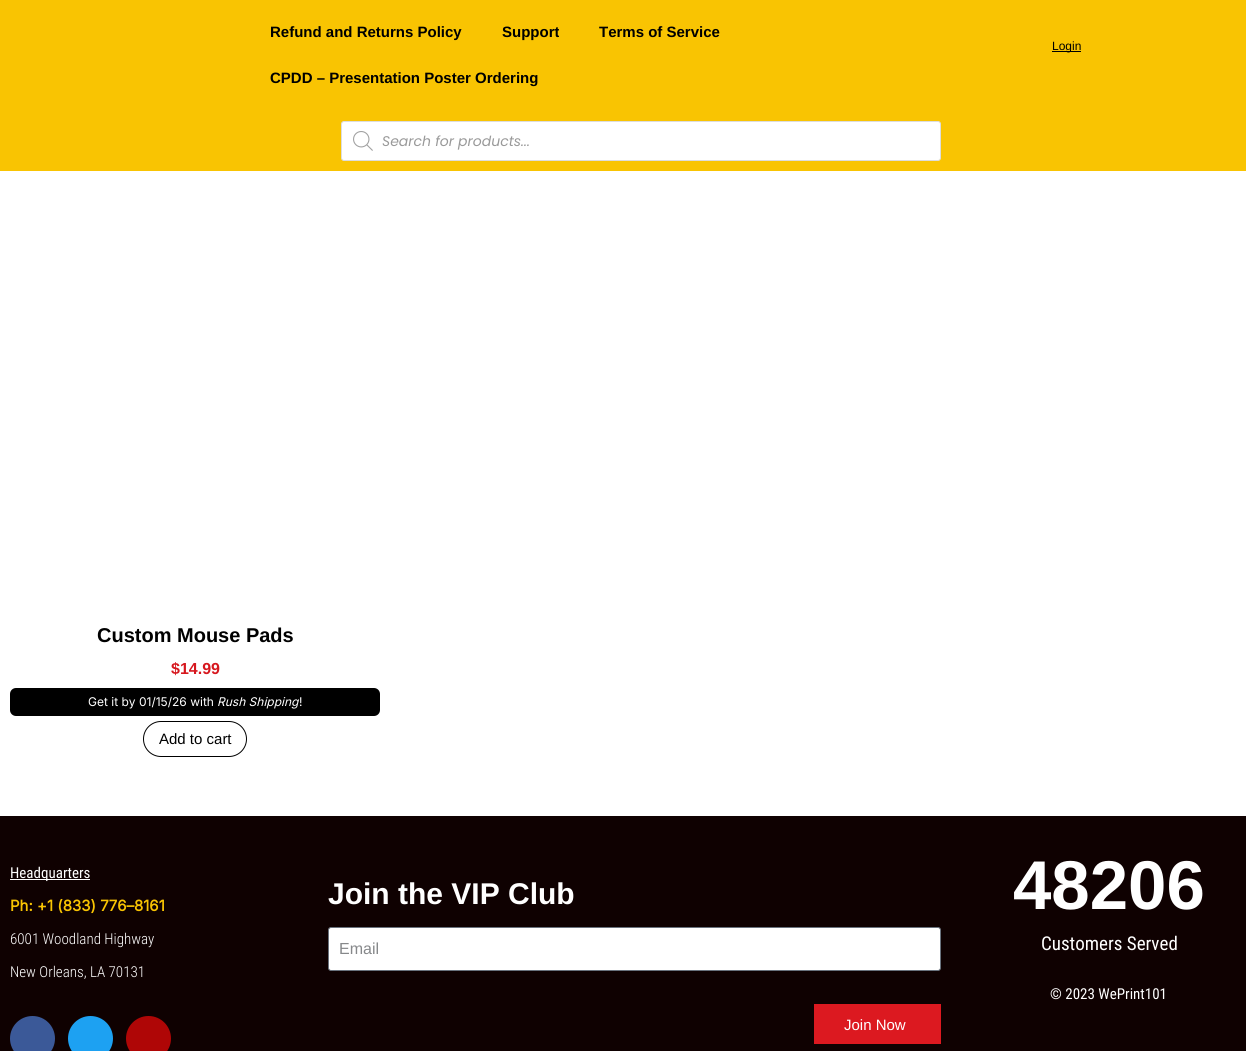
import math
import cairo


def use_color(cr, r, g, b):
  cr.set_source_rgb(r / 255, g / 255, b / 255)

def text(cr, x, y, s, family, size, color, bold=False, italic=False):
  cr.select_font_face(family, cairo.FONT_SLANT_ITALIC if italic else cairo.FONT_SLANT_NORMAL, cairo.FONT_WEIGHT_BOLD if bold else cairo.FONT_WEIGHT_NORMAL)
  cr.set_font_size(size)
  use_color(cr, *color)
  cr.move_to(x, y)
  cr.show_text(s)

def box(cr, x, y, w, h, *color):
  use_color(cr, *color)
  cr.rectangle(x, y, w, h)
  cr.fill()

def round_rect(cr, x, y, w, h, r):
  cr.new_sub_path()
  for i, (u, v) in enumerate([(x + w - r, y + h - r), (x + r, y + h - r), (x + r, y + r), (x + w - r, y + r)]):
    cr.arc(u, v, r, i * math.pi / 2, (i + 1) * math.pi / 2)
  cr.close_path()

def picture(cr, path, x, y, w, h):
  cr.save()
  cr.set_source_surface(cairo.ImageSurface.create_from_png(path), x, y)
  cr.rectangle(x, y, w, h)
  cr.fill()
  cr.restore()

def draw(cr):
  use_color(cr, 255, 255, 255)
  cr.paint()
  box(cr, 0, 0, 1246, 171, 249, 196, 2)
  use_color(cr, 255, 255, 255)
  round_rect(cr, 341.5, 121.5, 599, 39, 2.5)
  cr.fill_preserve()
  use_color(cr, 221, 221, 221)
  cr.set_line_width(1)
  cr.stroke()
  picture(cr, "img_01.png", 353, 131, 20, 20)
  box(cr, 1052, 51, 29, 1, 0, 0, 0)
  round_rect(cr, 10, 688, 370, 28, 6)
  cr.fill()
  round_rect(cr, 143.5, 721.5, 103, 35, 17.5)
  cr.stroke()
  box(cr, 0, 816, 1246, 235, 15, 1, 1)
  box(cr, 10, 879, 80, 1, 255, 255, 255)
  use_color(cr, 59, 89, 152)
  cr.arc(32.5, 1038.5, 22.5, 0, 2 * math.pi)
  cr.fill()
  use_color(cr, 29, 161, 242)
  cr.arc(90.5, 1038.5, 22.5, 0, 2 * math.pi)
  cr.fill()
  use_color(cr, 175, 6, 6)
  cr.arc(148.5, 1038.5, 22.5, 0, 2 * math.pi)
  cr.fill()
  use_color(cr, 255, 255, 255)
  round_rect(cr, 328.5, 927.5, 612, 43, 2.5)
  cr.fill_preserve()
  use_color(cr, 105, 114, 125)
  cr.stroke()
  box(cr, 814, 1004, 127, 40, 220, 25, 32)
  text(cr, 270, 37, "Refund and Returns Policy", "Liberation Sans", 15, (0, 0, 0), bold=True)
  text(cr, 502, 37, "Support", "Liberation Sans", 15, (0, 0, 0), bold=True)
  text(cr, 599, 37, "Terms of Service", "Liberation Sans", 15, (0, 0, 0), bold=True)
  text(cr, 270, 83, "CPDD – Presentation Poster Ordering", "Liberation Sans", 15, (0, 0, 0), bold=True)
  text(cr, 382, 146, "Search for products...", "Poppins", 14, (153, 153, 153), italic=True)
  text(cr, 1052, 50, "Login", "Liberation Sans", 12, (0, 0, 0))
  text(cr, 97, 642, "Custom Mouse Pads", "Liberation Sans", 20, (0, 0, 0), bold=True)
  text(cr, 171, 674, "$14.99", "Liberation Sans", 16, (214, 23, 30), bold=True)
  text(cr, 88, 706, "Get it by 01/15/26 with", "Inter", 12, (255, 255, 255))
  text(cr, 217, 706, "Rush Shipping", "Inter", 12, (255, 255, 255), italic=True)
  text(cr, 299, 706, "!", "Inter", 12, (255, 255, 255))
  text(cr, 159, 744, "Add to cart", "Liberation Sans", 15, (0, 0, 0))
  text(cr, 10, 878, "Headquarters", "Roboto Condensed", 15, (255, 255, 255))
  text(cr, 10, 911, "Ph: +1 (833) 776–8161", "Inter", 15, (249, 196, 2), bold=True)
  text(cr, 10, 944, "6001 Woodland Highway", "Roboto Condensed Light", 15, (255, 255, 255))
  text(cr, 10, 977, "New Orleans, LA 70131", "Roboto Condensed Light", 15, (255, 255, 255))
  text(cr, 328, 904, "Join the VIP Club", "Liberation Sans", 30, (255, 255, 255), bold=True)
  text(cr, 339, 954, "Email", "Liberation Sans", 16, (134, 136, 138))
  text(cr, 844, 1030, "Join Now", "Liberation Sans", 15, (255, 255, 255))
  text(cr, 1013, 909, "48206", "Liberation Sans", 69, (255, 255, 255), bold=True)
  text(cr, 1041, 950, "Customers Served", "Roboto Condensed", 19, (255, 255, 255))
  text(cr, 1050, 999, "© 2023 WePrint101", "Roboto Condensed", 15, (255, 255, 255))


surface = cairo.ImageSurface(cairo.FORMAT_RGB24, 1246, 1051)
cr = cairo.Context(surface)
options = cairo.FontOptions()
options.set_hint_metrics(cairo.HINT_METRICS_OFF)
options.set_hint_style(cairo.HINT_STYLE_NONE)
cr.set_font_options(options)
cr.set_miter_limit(4)
draw(cr)
surface.write_to_png("out.png")
